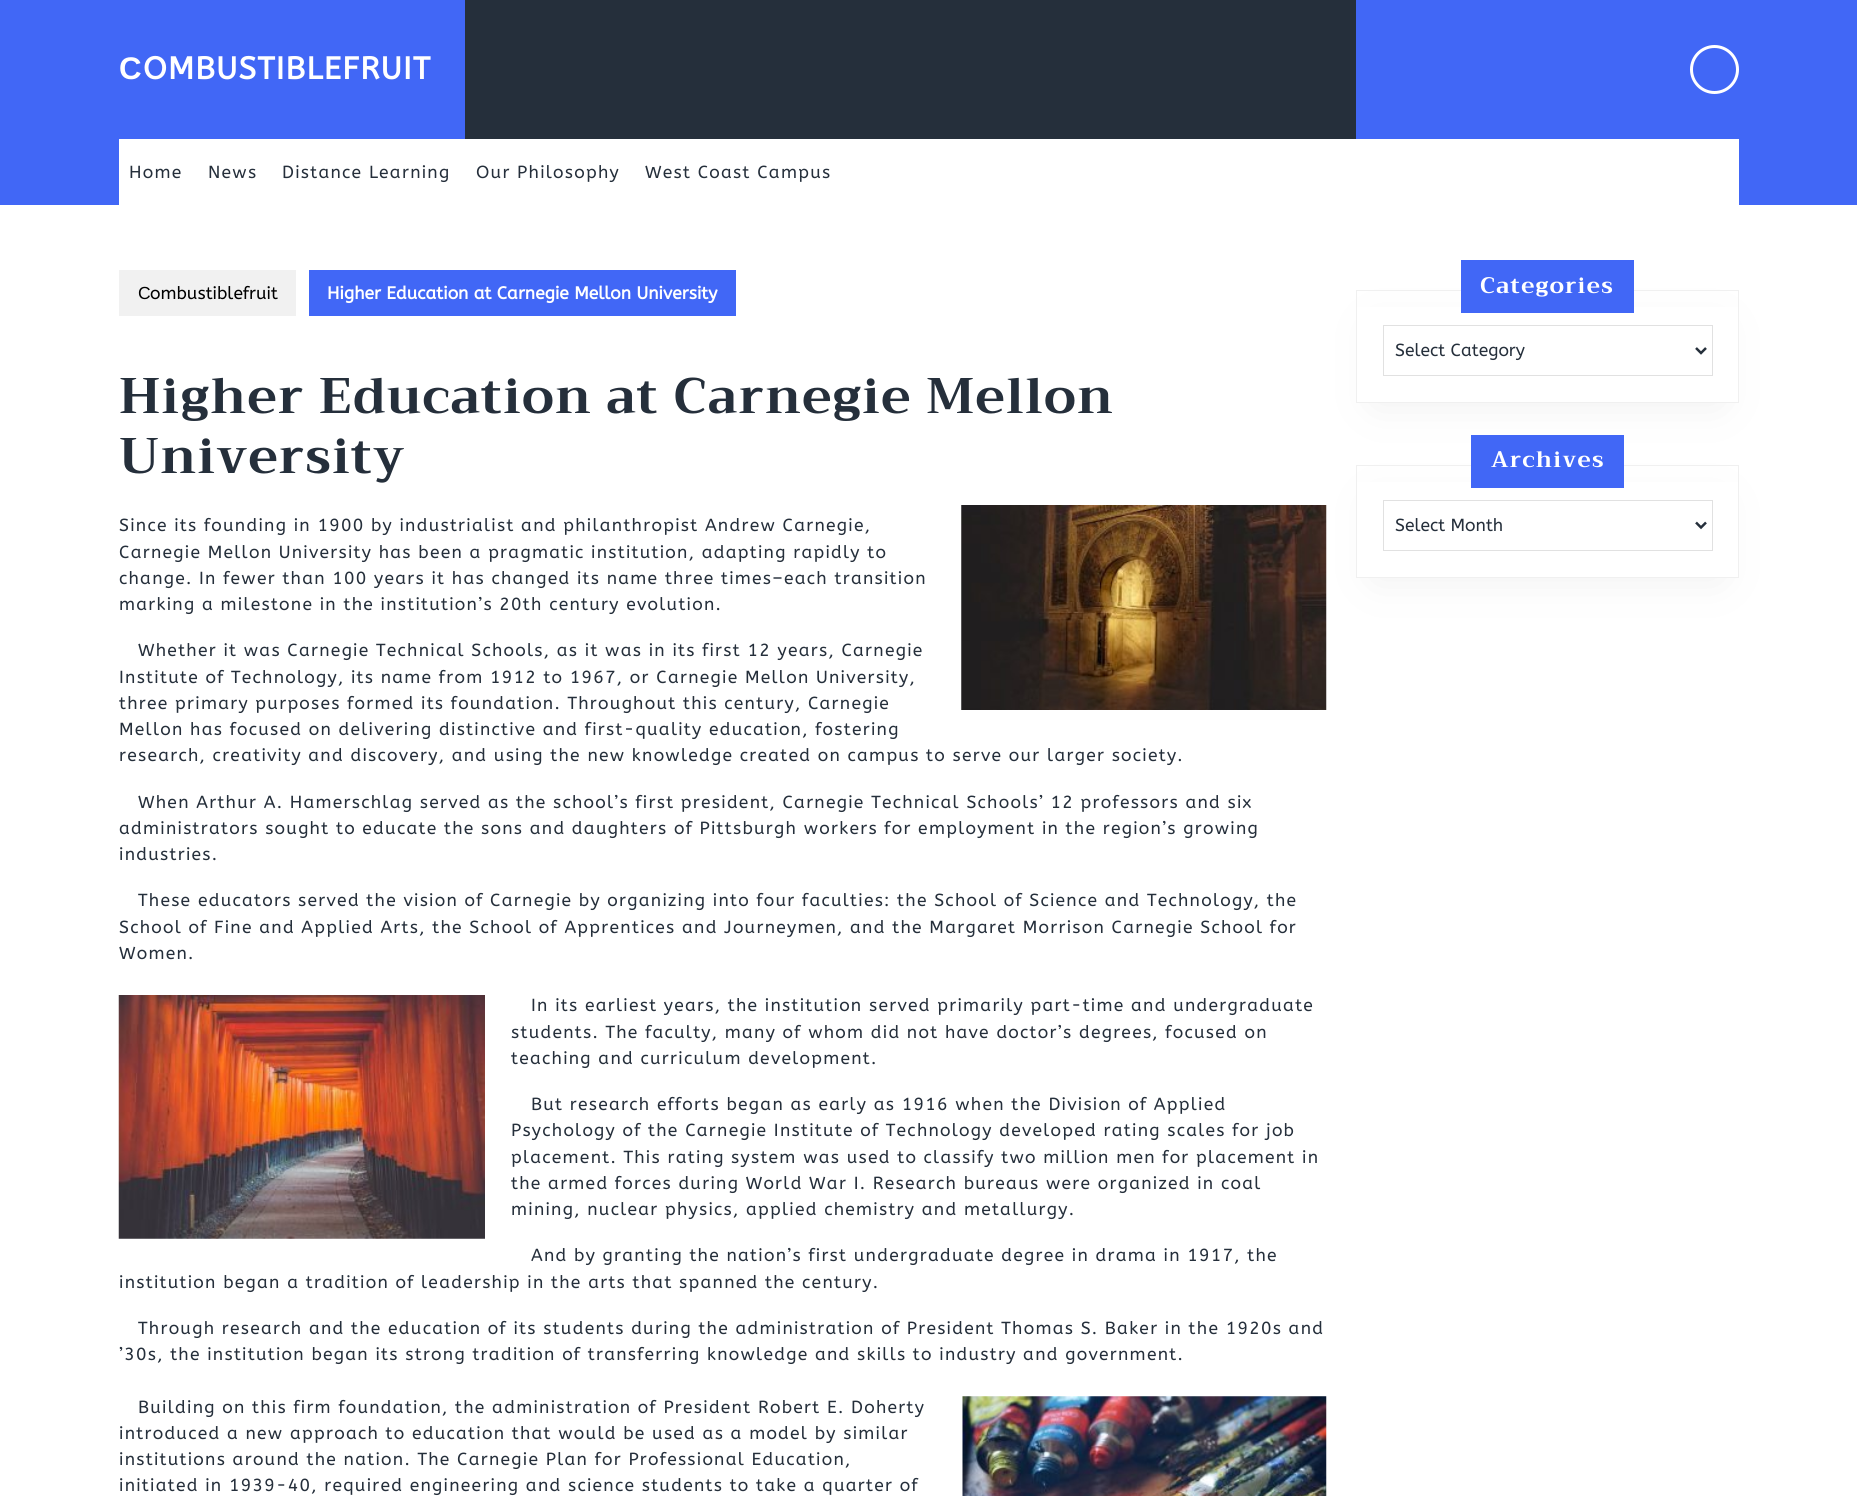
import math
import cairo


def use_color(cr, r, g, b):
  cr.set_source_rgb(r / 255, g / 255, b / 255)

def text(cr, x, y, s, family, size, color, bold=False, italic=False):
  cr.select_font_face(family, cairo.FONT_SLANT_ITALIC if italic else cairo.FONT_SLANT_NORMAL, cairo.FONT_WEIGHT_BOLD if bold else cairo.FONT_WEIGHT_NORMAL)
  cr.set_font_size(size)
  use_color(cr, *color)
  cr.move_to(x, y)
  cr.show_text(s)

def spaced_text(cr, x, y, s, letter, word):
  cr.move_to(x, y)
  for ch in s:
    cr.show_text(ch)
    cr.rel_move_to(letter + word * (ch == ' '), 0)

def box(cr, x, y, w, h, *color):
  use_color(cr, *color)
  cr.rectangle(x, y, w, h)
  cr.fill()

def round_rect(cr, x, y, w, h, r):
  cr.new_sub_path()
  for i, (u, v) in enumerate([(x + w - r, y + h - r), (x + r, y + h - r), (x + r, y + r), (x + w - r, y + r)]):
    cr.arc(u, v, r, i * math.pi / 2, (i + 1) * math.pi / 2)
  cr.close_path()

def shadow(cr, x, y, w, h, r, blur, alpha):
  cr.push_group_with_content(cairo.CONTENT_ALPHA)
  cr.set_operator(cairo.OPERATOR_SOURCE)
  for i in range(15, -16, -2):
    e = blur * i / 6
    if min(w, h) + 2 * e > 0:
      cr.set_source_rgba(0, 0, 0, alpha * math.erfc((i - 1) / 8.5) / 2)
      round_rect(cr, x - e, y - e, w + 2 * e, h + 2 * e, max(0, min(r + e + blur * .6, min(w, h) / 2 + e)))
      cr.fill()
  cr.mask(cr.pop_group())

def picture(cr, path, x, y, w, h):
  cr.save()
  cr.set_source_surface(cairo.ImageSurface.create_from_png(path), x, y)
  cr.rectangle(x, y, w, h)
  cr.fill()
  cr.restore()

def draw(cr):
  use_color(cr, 255, 255, 255)
  cr.paint()
  box(cr, 0, 0, 465, 205, 65, 103, 246)
  box(cr, 465, 0, 891, 139, 37, 47, 59)
  box(cr, 1356, 0, 501, 205, 65, 103, 246)
  cr.arc(1714.5, 69.5, 23, 0, 2 * math.pi)
  use_color(cr, 255, 255, 255)
  cr.set_line_width(3)
  cr.stroke()
  box(cr, 119, 139, 1620, 66, 255, 255, 255)
  box(cr, 119, 270, 177, 46, 241, 241, 241)
  box(cr, 309, 270, 427, 46, 65, 103, 246)
  picture(cr, "img_01.png", 961, 505, 366, 205)
  picture(cr, "img_02.png", 118, 995, 367, 244)
  picture(cr, "img_03.png", 962, 1396, 365, 100)
  use_color(cr, 240, 240, 240)
  shadow(cr, 1375, 328, 345, 75, 0, 22, 1)
  box(cr, 1357, 307, 381, 95, 255, 255, 255)
  cr.rectangle(1356.5, 290.5, 382, 112)
  use_color(cr, 240, 240, 240)
  cr.set_line_width(1)
  cr.stroke()
  box(cr, 1461, 260, 173, 53, 65, 103, 246)
  cr.rectangle(1383.5, 325.5, 329, 50)
  use_color(cr, 225, 225, 225)
  cr.stroke()
  cr.new_path()
  cr.move_to(1696, 348)
  cr.line_to(1701, 353)
  cr.line_to(1706, 348)
  use_color(cr, 37, 47, 59)
  cr.set_line_width(2.5)
  cr.stroke()
  use_color(cr, 240, 240, 240)
  shadow(cr, 1375, 503, 345, 75, 0, 22, 1)
  box(cr, 1357, 482, 381, 95, 255, 255, 255)
  cr.rectangle(1356.5, 465.5, 382, 112)
  use_color(cr, 240, 240, 240)
  cr.set_line_width(1)
  cr.stroke()
  box(cr, 1471, 435, 153, 53, 65, 103, 246)
  cr.rectangle(1383.5, 500.5, 329, 50)
  use_color(cr, 225, 225, 225)
  cr.stroke()
  cr.new_path()
  cr.move_to(1696, 522.5)
  cr.line_to(1701, 527.5)
  cr.line_to(1706, 522.5)
  use_color(cr, 37, 47, 59)
  cr.set_line_width(2.5)
  cr.stroke()
  cr.select_font_face("Liberation Sans", cairo.FONT_SLANT_NORMAL, cairo.FONT_WEIGHT_BOLD)
  cr.set_font_size(31.25)
  use_color(cr, 255, 255, 255)
  spaced_text(cr, 119, 79, "С", 1.25, 0)
  cr.select_font_face("ABeeZee", cairo.FONT_SLANT_NORMAL, cairo.FONT_WEIGHT_BOLD)
  spaced_text(cr, 143, 79, "OMBUSTIBLEFRUIT", 1.25, 0)
  cr.select_font_face("ABeeZee")
  cr.set_font_size(17.5)
  use_color(cr, 37, 47, 59)
  spaced_text(cr, 129, 178, "Home", 1.25, 0)
  spaced_text(cr, 208, 178, "News", 1.25, 0)
  spaced_text(cr, 282, 178, "Distance Learning", 1.25, 0)
  spaced_text(cr, 476, 178, "Our Philosophy", 1.25, 0)
  spaced_text(cr, 645, 178, "West Coast Campus", 1.25, 0)
  text(cr, 138, 299, "С", "Liberation Sans", 17.5, (0, 0, 0))
  text(cr, 150, 299, "ombustiblefruit", "ABeeZee", 17.5, (0, 0, 0))
  text(cr, 327, 299, "Higher Education at Carnegie Mellon University", "ABeeZee", 17.5, (255, 255, 255), bold=True)
  cr.select_font_face("Trirong", cairo.FONT_SLANT_NORMAL, cairo.FONT_WEIGHT_BOLD)
  cr.set_font_size(50)
  use_color(cr, 37, 47, 59)
  spaced_text(cr, 119, 413, "Higher Education at Carnegie Mellon", 1.25, 0)
  spaced_text(cr, 119, 473, "University", 1.25, 0)
  cr.select_font_face("ABeeZee")
  cr.set_font_size(17.5)
  spaced_text(cr, 119, 531, "Since its founding in 1900 by industrialist and philanthropist Andrew Carnegie,", 1.25, 0)
  spaced_text(cr, 119, 558, "Carnegie Mellon University has been a pragmatic institution, adapting rapidly to", 1.25, 0)
  spaced_text(cr, 119, 584, "change. In fewer than 100 years it has changed its name three times–each transition", 1.25, 0)
  spaced_text(cr, 119, 610, "marking a milestone in the institution’s 20th century evolution.", 1.25, 0)
  spaced_text(cr, 138, 656, "Whether it was Carnegie Technical Schools, as it was in its first 12 years, Carnegie", 1.25, 0)
  spaced_text(cr, 119, 683, "Institute of Technology, its name from 1912 to 1967, or Carnegie Mellon University,", 1.25, 0)
  spaced_text(cr, 119, 709, "three primary purposes formed its foundation. Throughout this century, Carnegie", 1.25, 0)
  spaced_text(cr, 119, 735, "Mellon has focused on delivering distinctive and first-quality education, fostering", 1.25, 0)
  spaced_text(cr, 119, 761, "research, creativity and discovery, and using the new knowledge created on campus to serve our larger society.", 1.25, 0)
  spaced_text(cr, 138, 808, "When Arthur A. Hamerschlag served as the school’s first president, Carnegie Technical Schools’ 12 professors and six", 1.25, 0)
  spaced_text(cr, 119, 834, "administrators sought to educate the sons and daughters of Pittsburgh workers for employment in the region’s growing", 1.25, 0)
  spaced_text(cr, 119, 860, "industries.", 1.25, 0)
  spaced_text(cr, 138, 906, "These educators served the vision of Carnegie by organizing into four faculties: the School of Science and Technology, the", 1.25, 0)
  spaced_text(cr, 119, 933, "School of Fine and Applied Arts, the School of Apprentices and Journeymen, and the Margaret Morrison Carnegie School for", 1.25, 0)
  spaced_text(cr, 119, 959, "Women.", 1.25, 0)
  spaced_text(cr, 531, 1011, "In its earliest years, the institution served primarily part-time and undergraduate", 1.25, 0)
  spaced_text(cr, 511, 1038, "students. The faculty, many of whom did not have doctor’s degrees, focused on", 1.25, 0)
  spaced_text(cr, 511, 1064, "teaching and curriculum development.", 1.25, 0)
  spaced_text(cr, 531, 1110, "But research efforts began as early as 1916 when the Division of Applied", 1.25, 0)
  spaced_text(cr, 511, 1136, "Psychology of the Carnegie Institute of Technology developed rating scales for job", 1.25, 0)
  spaced_text(cr, 511, 1163, "placement. This rating system was used to classify two million men for placement in", 1.25, 0)
  spaced_text(cr, 511, 1189, "the armed forces during World War I. Research bureaus were organized in coal", 1.25, 0)
  spaced_text(cr, 511, 1215, "mining, nuclear physics, applied chemistry and metallurgy.", 1.25, 0)
  spaced_text(cr, 531, 1261, "And by granting the nation’s first undergraduate degree in drama in 1917, the", 1.25, 0)
  spaced_text(cr, 119, 1288, "institution began a tradition of leadership in the arts that spanned the century.", 1.25, 0)
  spaced_text(cr, 138, 1334, "Through research and the education of its students during the administration of President Thomas S. Baker in the 1920s and", 1.25, 0)
  spaced_text(cr, 119, 1360, "’30s, the institution began its strong tradition of transferring knowledge and skills to industry and government.", 1.25, 0)
  spaced_text(cr, 138, 1413, "Building on this firm foundation, the administration of President Robert E. Doherty", 1.25, 0)
  spaced_text(cr, 119, 1439, "introduced a new approach to education that would be used as a model by similar", 1.25, 0)
  spaced_text(cr, 119, 1465, "institutions around the nation. The Carnegie Plan for Professional Education,", 1.25, 0)
  spaced_text(cr, 119, 1491, "initiated in 1939-40, required engineering and science students to take a quarter of", 1.25, 0)
  cr.select_font_face("Trirong", cairo.FONT_SLANT_NORMAL, cairo.FONT_WEIGHT_BOLD)
  cr.set_font_size(22.5)
  use_color(cr, 255, 255, 255)
  spaced_text(cr, 1480, 293, "Categories", 1.25, 0)
  text(cr, 1395, 356, "Select Category", "ABeeZee", 17.5, (37, 47, 59))
  cr.select_font_face("Trirong", cairo.FONT_SLANT_NORMAL, cairo.FONT_WEIGHT_BOLD)
  cr.set_font_size(22.5)
  use_color(cr, 255, 255, 255)
  spaced_text(cr, 1491, 467, "Archives", 1.25, 0)
  text(cr, 1395, 531, "Select Month", "ABeeZee", 17.5, (37, 47, 59))


surface = cairo.ImageSurface(cairo.FORMAT_RGB24, 1857, 1496)
cr = cairo.Context(surface)
options = cairo.FontOptions()
options.set_hint_metrics(cairo.HINT_METRICS_OFF)
options.set_hint_style(cairo.HINT_STYLE_NONE)
cr.set_font_options(options)
cr.set_miter_limit(4)
draw(cr)
surface.write_to_png("out.png")
